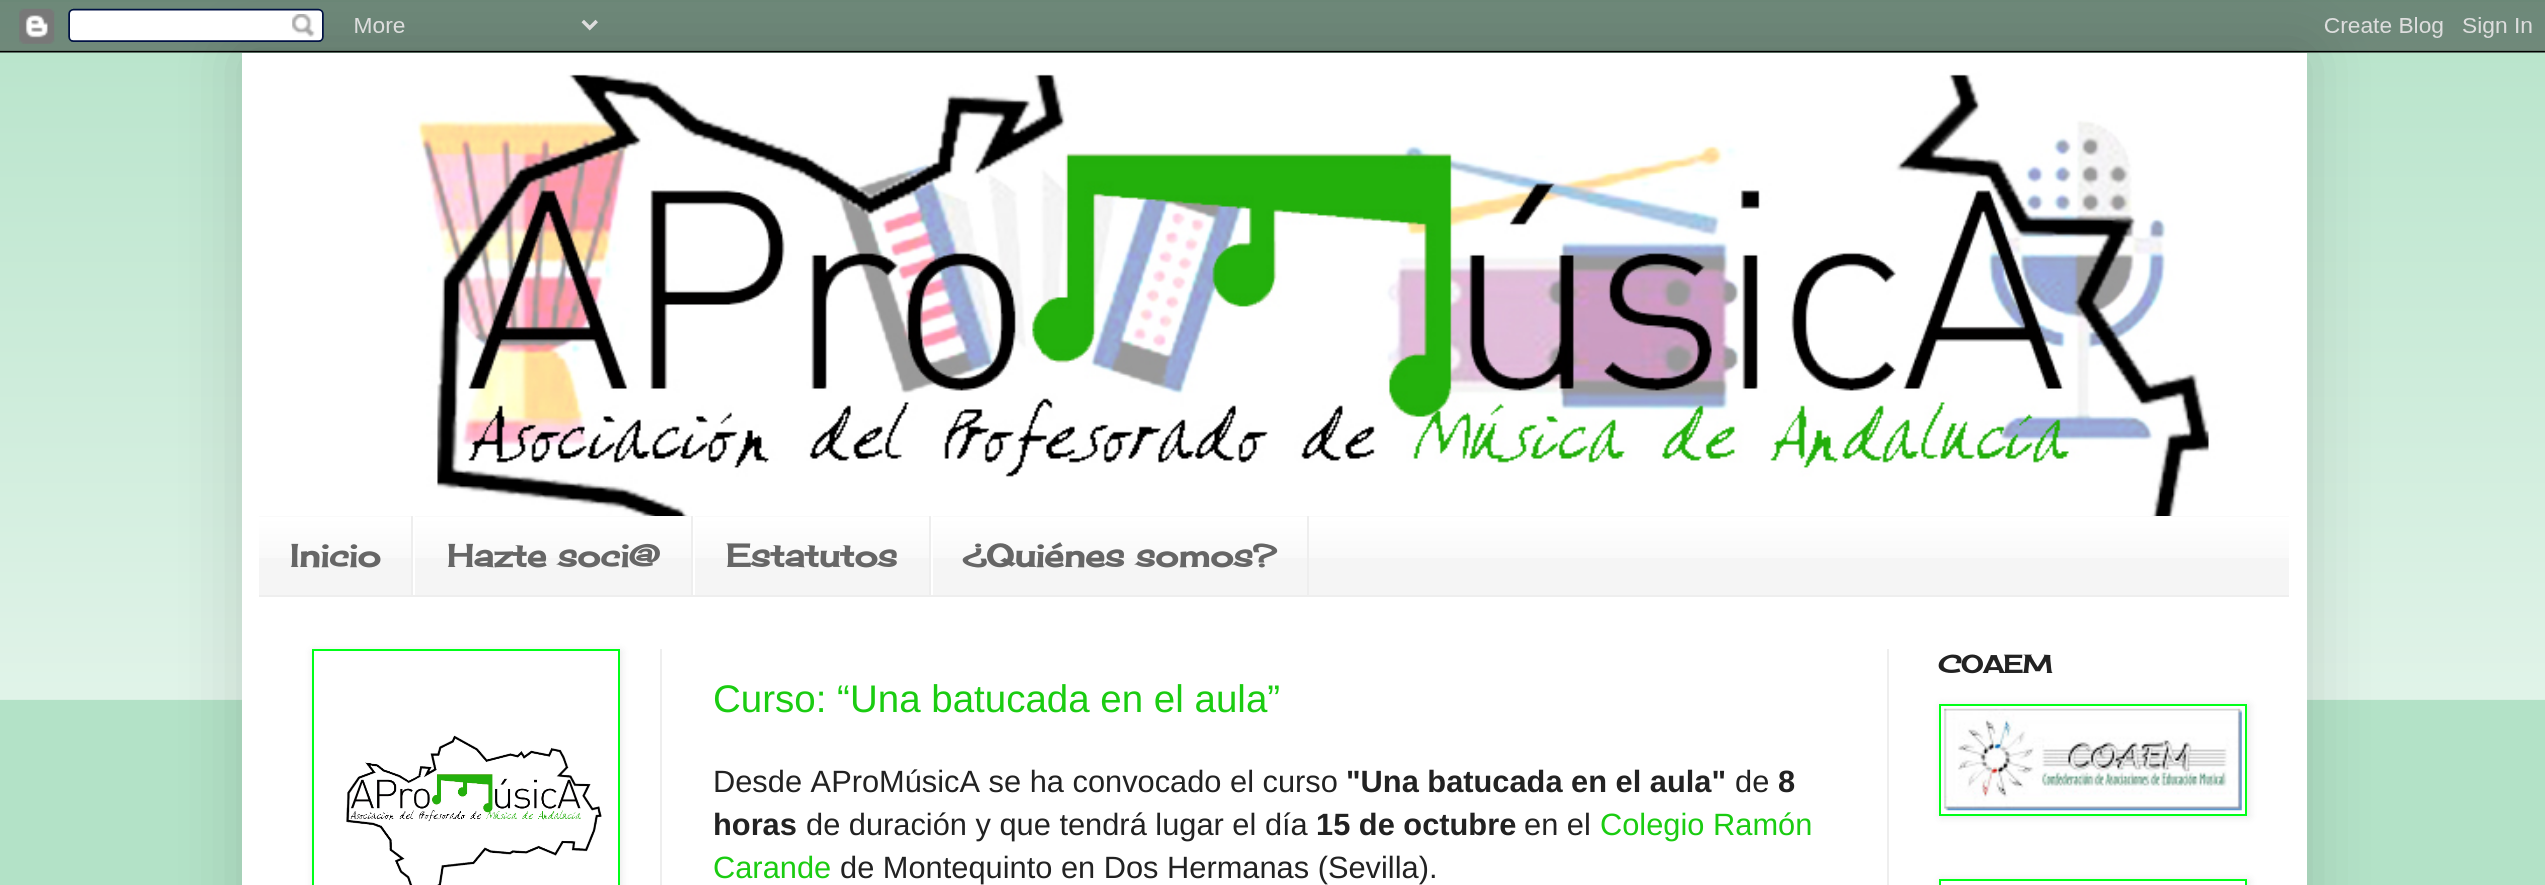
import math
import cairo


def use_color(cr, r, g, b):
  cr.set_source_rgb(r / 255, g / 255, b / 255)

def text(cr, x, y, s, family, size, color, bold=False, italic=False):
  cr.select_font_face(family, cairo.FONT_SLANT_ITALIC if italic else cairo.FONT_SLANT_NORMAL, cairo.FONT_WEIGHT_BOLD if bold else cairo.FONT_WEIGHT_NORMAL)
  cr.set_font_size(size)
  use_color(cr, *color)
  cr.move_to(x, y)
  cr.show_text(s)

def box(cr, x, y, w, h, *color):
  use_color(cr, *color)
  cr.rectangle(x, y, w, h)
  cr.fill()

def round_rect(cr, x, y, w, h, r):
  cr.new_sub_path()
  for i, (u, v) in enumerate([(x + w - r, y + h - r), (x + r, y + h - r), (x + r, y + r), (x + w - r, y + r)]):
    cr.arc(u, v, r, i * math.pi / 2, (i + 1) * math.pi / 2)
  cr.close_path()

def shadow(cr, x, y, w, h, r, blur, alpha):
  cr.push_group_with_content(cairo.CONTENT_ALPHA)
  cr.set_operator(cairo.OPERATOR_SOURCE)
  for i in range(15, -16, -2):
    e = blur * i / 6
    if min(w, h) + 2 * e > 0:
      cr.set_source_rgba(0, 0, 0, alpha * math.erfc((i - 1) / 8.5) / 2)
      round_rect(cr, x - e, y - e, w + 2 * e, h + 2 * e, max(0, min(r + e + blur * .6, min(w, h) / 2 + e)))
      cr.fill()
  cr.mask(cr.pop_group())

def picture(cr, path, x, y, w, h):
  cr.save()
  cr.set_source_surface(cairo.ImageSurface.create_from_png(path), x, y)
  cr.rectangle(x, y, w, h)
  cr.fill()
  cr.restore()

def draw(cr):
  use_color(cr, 179, 226, 199)
  cr.paint()
  picture(cr, "img_02.png", 0, 2, 2545, 698)
  use_color(cr, 0, 0, 0)
  shadow(cr, 242, 53, 2065, 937, 0, 35, 0.15)
  picture(cr, "img_01.png", 0, 0, 2545, 53)
  box(cr, 242, 53, 2065, 832, 255, 255, 255)
  picture(cr, "img_03.png", 259, 70, 2030, 446)
  box(cr, 259, 516, 2030, 79, 245, 245, 245)
  picture(cr, "img_04.png", 259, 516, 2030, 42)
  box(cr, 259, 595, 2030, 2, 238, 238, 238)
  box(cr, 411, 516, 2, 79, 238, 238, 238)
  box(cr, 691, 516, 2, 79, 238, 238, 238)
  box(cr, 413, 516, 2, 79, 255, 255, 255)
  box(cr, 929, 516, 2, 79, 238, 238, 238)
  box(cr, 693, 516, 2, 79, 255, 255, 255)
  box(cr, 1307, 516, 2, 79, 238, 238, 238)
  box(cr, 931, 516, 2, 79, 255, 255, 255)
  box(cr, 660, 649, 2, 236, 238, 238, 238)
  box(cr, 1887, 649, 2, 236, 238, 238, 238)
  use_color(cr, 0, 0, 0)
  shadow(cr, 313, 651, 308, 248, 0, 4.5, 0.1)
  use_color(cr, 255, 255, 255)
  cr.rectangle(313, 650, 306, 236)
  cr.fill_preserve()
  use_color(cr, 0, 255, 25)
  cr.stroke()
  picture(cr, "img_05.png", 346, 735, 256, 150)
  use_color(cr, 0, 0, 0)
  shadow(cr, 1941, 705, 308, 112, 0, 4.5, 0.1)
  use_color(cr, 255, 255, 255)
  cr.rectangle(1940, 705, 306, 110)
  cr.fill_preserve()
  use_color(cr, 0, 255, 25)
  cr.stroke()
  picture(cr, "img_06.png", 1944, 708, 298, 103)
  cr.save()
  cr.set_fill_rule(cairo.FILL_RULE_EVEN_ODD)
  cr.new_path()
  cr.move_to(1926, 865)
  cr.line_to(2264, 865)
  cr.line_to(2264, 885)
  cr.line_to(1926, 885)
  cr.close_path()
  cr.move_to(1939, 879)
  cr.line_to(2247, 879)
  cr.line_to(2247, 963)
  cr.line_to(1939, 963)
  cr.close_path()
  cr.clip()
  use_color(cr, 0, 0, 0)
  shadow(cr, 1941, 880, 308, 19, 0, 4.5, 0.1)
  cr.restore()
  cr.rectangle(1940, 880, 306, 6)
  cr.stroke()
  text(cr, 290, 567, "Inicio", "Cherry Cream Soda", 31.5, (102, 102, 102), bold=True)
  text(cr, 447, 567, "Hazte soci@", "Cherry Cream Soda", 31.5, (102, 102, 102), bold=True)
  text(cr, 726, 567, "Estatutos", "Cherry Cream Soda", 31.5, (102, 102, 102), bold=True)
  text(cr, 963, 567, "¿Quiénes somos?", "Cherry Cream Soda", 31.5, (102, 102, 102), bold=True)
  text(cr, 1938, 673, "COAEM", "Cherry Cream Soda", 24.5, (34, 34, 34), bold=True)
  text(cr, 713, 712, "Curso: “Una batucada en el aula”", "Liberation Sans", 38.5, (26, 204, 17))
  text(cr, 713, 792, "Desde AProMúsicA se ha convocado el curso", "Liberation Sans", 30.8, (34, 34, 34))
  text(cr, 1346, 792, "\"Una batucada en el aula\"", "Liberation Sans", 30.8, (34, 34, 34), bold=True)
  text(cr, 1735, 792, "de", "Liberation Sans", 30.8, (34, 34, 34))
  text(cr, 1778, 792, "8", "Liberation Sans", 30.8, (34, 34, 34), bold=True)
  text(cr, 713, 835, "horas", "Liberation Sans", 30.8, (34, 34, 34), bold=True)
  text(cr, 806, 835, "de duración y que tendrá lugar el día", "Liberation Sans", 30.8, (34, 34, 34))
  text(cr, 1316, 835, "15 de octubre", "Liberation Sans", 30.8, (34, 34, 34), bold=True)
  text(cr, 1524, 835, "en el", "Liberation Sans", 30.8, (34, 34, 34))
  text(cr, 1600, 835, "Colegio Ramón", "Liberation Sans", 30.8, (26, 204, 17))
  text(cr, 713, 878, "Carande", "Liberation Sans", 30.8, (26, 204, 17))
  text(cr, 840, 878, "de Montequinto en Dos Hermanas (Sevilla).", "Liberation Sans", 30.8, (34, 34, 34))


surface = cairo.ImageSurface(cairo.FORMAT_RGB24, 2545, 885)
cr = cairo.Context(surface)
options = cairo.FontOptions()
options.set_hint_metrics(cairo.HINT_METRICS_OFF)
options.set_hint_style(cairo.HINT_STYLE_NONE)
cr.set_font_options(options)
cr.set_miter_limit(4)
draw(cr)
surface.write_to_png("out.png")
